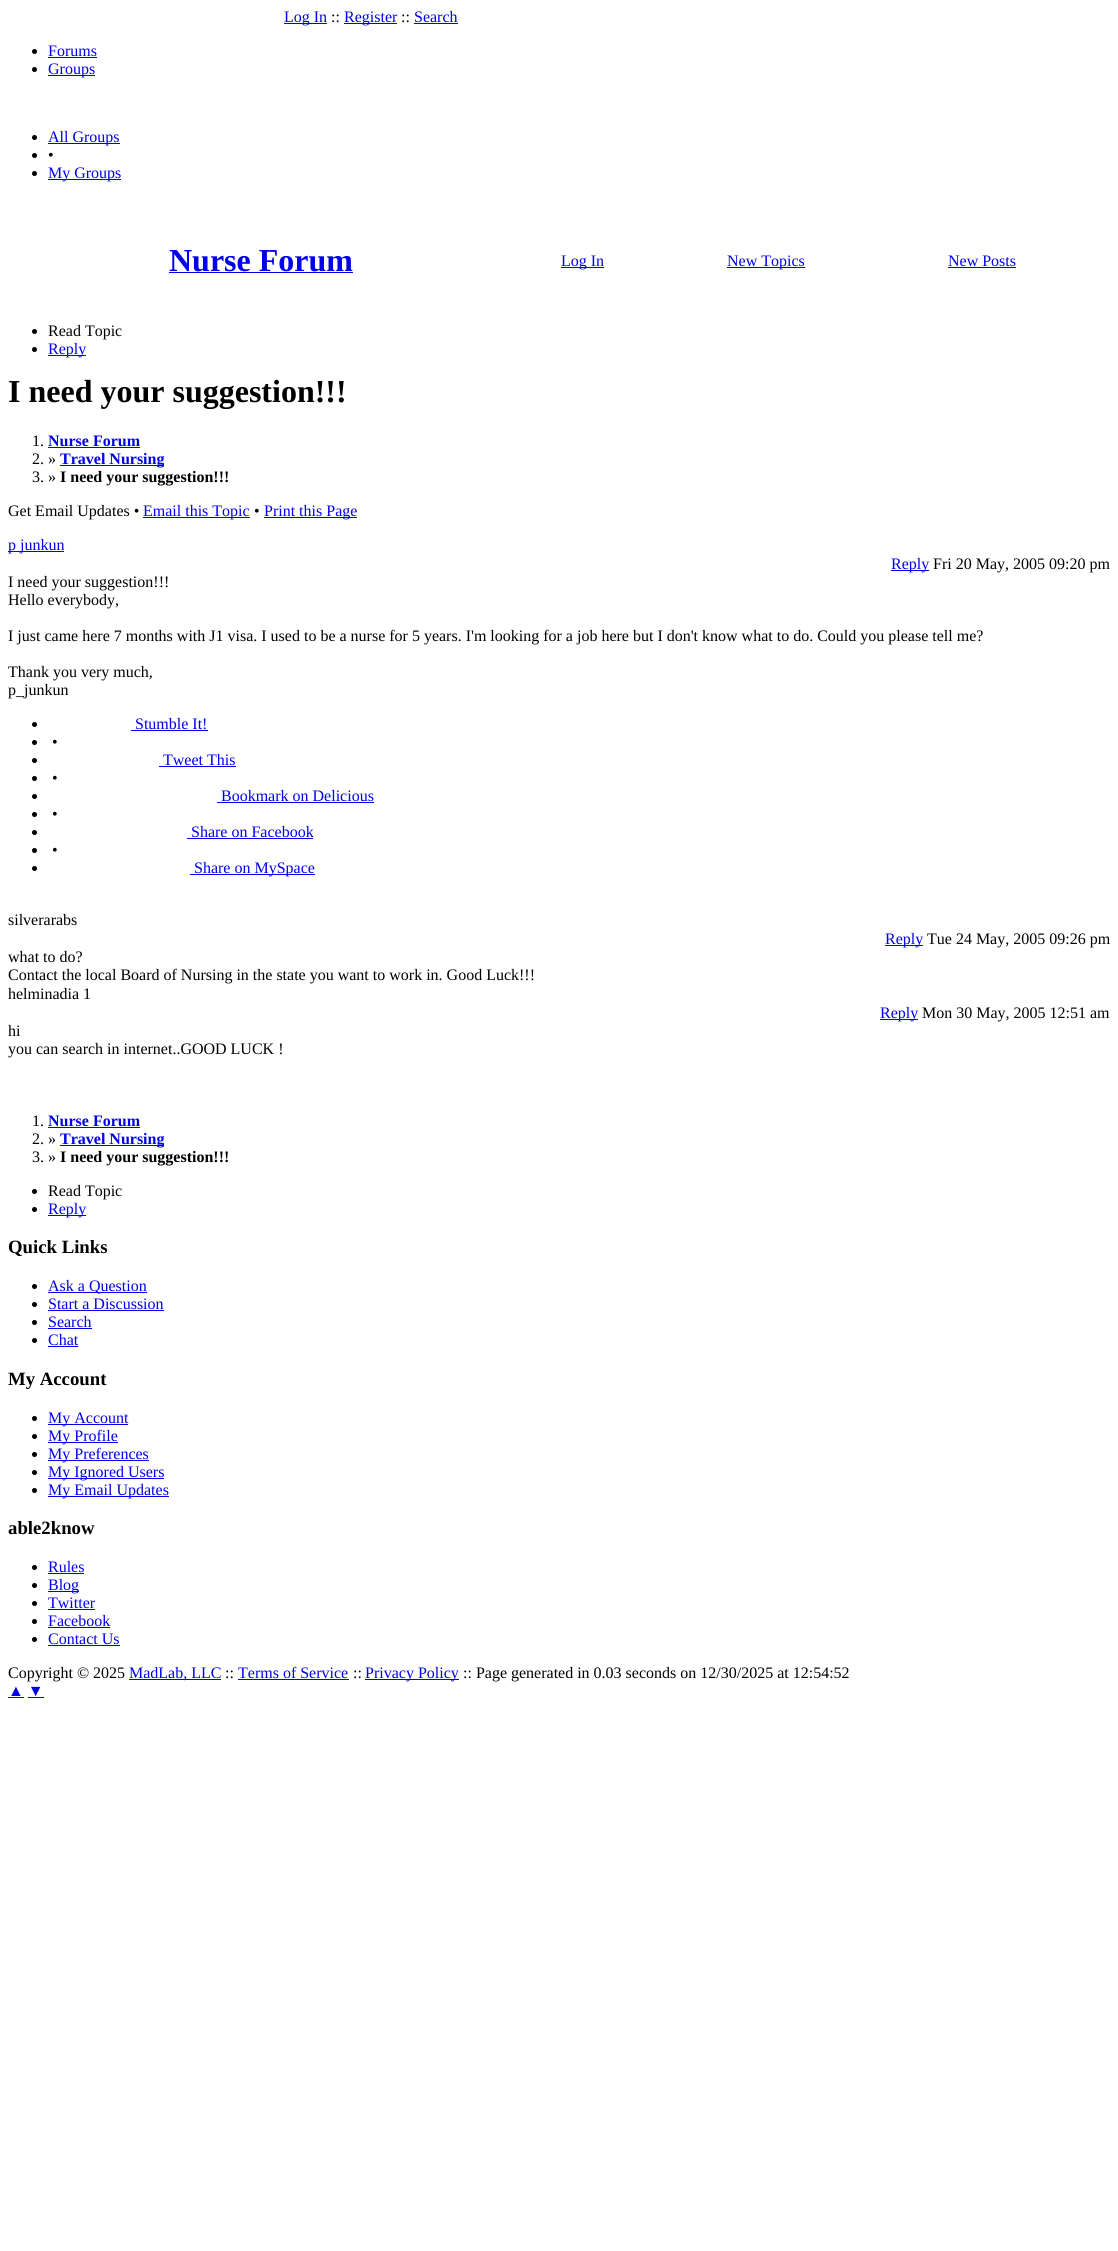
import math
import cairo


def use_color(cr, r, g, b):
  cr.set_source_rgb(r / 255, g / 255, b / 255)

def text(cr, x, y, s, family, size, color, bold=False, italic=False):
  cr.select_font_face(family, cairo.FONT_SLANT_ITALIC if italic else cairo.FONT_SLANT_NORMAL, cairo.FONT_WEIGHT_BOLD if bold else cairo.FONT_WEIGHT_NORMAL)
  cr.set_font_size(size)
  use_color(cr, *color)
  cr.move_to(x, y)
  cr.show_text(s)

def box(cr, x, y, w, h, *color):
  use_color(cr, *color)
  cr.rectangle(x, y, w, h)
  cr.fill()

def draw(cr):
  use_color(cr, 255, 255, 255)
  cr.paint()
  box(cr, 284, 23, 43, 1, 0, 0, 238)
  box(cr, 344, 23, 53, 1, 0, 0, 238)
  box(cr, 414, 23, 44, 1, 0, 0, 238)
  use_color(cr, 0, 0, 0)
  cr.arc(34.5, 51.5, 2.5, 0, 2 * math.pi)
  cr.fill()
  box(cr, 48, 57, 49, 1, 0, 0, 238)
  use_color(cr, 0, 0, 0)
  cr.arc(34.5, 69.5, 2.5, 0, 2 * math.pi)
  cr.fill()
  box(cr, 48, 75, 47, 1, 0, 0, 238)
  use_color(cr, 0, 0, 0)
  cr.arc(34.5, 137.5, 2.5, 0, 2 * math.pi)
  cr.fill()
  box(cr, 48, 143, 72, 1, 0, 0, 238)
  use_color(cr, 0, 0, 0)
  cr.arc(34.5, 155.5, 2.5, 0, 2 * math.pi)
  cr.fill()
  cr.arc(34.5, 173.5, 2.5, 0, 2 * math.pi)
  cr.fill()
  box(cr, 48, 179, 73, 1, 0, 0, 238)
  box(cr, 169, 272, 184, 1, 0, 0, 238)
  box(cr, 561, 267, 43, 1, 0, 0, 238)
  box(cr, 727, 267, 78, 1, 0, 0, 238)
  box(cr, 948, 267, 68, 1, 0, 0, 238)
  use_color(cr, 0, 0, 0)
  cr.arc(34.5, 331.5, 2.5, 0, 2 * math.pi)
  cr.fill()
  cr.arc(34.5, 349.5, 2.5, 0, 2 * math.pi)
  cr.fill()
  box(cr, 48, 355, 38, 1, 0, 0, 238)
  box(cr, 48, 447, 92, 1, 0, 0, 238)
  box(cr, 60, 465, 104, 1, 0, 0, 238)
  box(cr, 143, 517, 107, 1, 0, 0, 238)
  box(cr, 264, 517, 93, 1, 0, 0, 238)
  box(cr, 8, 551, 56, 1, 0, 0, 238)
  box(cr, 891, 570, 38, 1, 0, 0, 238)
  use_color(cr, 0, 0, 0)
  cr.arc(34.5, 724.5, 2.5, 0, 2 * math.pi)
  cr.fill()
  box(cr, 131, 730, 77, 1, 0, 0, 238)
  use_color(cr, 0, 0, 0)
  cr.arc(34.5, 742.5, 2.5, 0, 2 * math.pi)
  cr.fill()
  cr.arc(34.5, 760.5, 2.5, 0, 2 * math.pi)
  cr.fill()
  box(cr, 159, 766, 77, 1, 0, 0, 238)
  use_color(cr, 0, 0, 0)
  cr.arc(34.5, 778.5, 2.5, 0, 2 * math.pi)
  cr.fill()
  cr.arc(34.5, 796.5, 2.5, 0, 2 * math.pi)
  cr.fill()
  box(cr, 217, 802, 157, 1, 0, 0, 238)
  use_color(cr, 0, 0, 0)
  cr.arc(34.5, 814.5, 2.5, 0, 2 * math.pi)
  cr.fill()
  cr.arc(34.5, 832.5, 2.5, 0, 2 * math.pi)
  cr.fill()
  box(cr, 187, 838, 126, 1, 0, 0, 238)
  use_color(cr, 0, 0, 0)
  cr.arc(34.5, 850.5, 2.5, 0, 2 * math.pi)
  cr.fill()
  cr.arc(34.5, 868.5, 2.5, 0, 2 * math.pi)
  cr.fill()
  box(cr, 190, 874, 125, 1, 0, 0, 238)
  box(cr, 885, 945, 38, 1, 0, 0, 238)
  box(cr, 880, 1019, 38, 1, 0, 0, 238)
  box(cr, 48, 1127, 92, 1, 0, 0, 238)
  box(cr, 60, 1145, 104, 1, 0, 0, 238)
  use_color(cr, 0, 0, 0)
  cr.arc(34.5, 1191.5, 2.5, 0, 2 * math.pi)
  cr.fill()
  cr.arc(34.5, 1209.5, 2.5, 0, 2 * math.pi)
  cr.fill()
  box(cr, 48, 1215, 38, 1, 0, 0, 238)
  use_color(cr, 0, 0, 0)
  cr.arc(34.5, 1286.5, 2.5, 0, 2 * math.pi)
  cr.fill()
  box(cr, 48, 1292, 99, 1, 0, 0, 238)
  use_color(cr, 0, 0, 0)
  cr.arc(34.5, 1304.5, 2.5, 0, 2 * math.pi)
  cr.fill()
  box(cr, 48, 1310, 116, 1, 0, 0, 238)
  use_color(cr, 0, 0, 0)
  cr.arc(34.5, 1322.5, 2.5, 0, 2 * math.pi)
  cr.fill()
  box(cr, 48, 1328, 44, 1, 0, 0, 238)
  use_color(cr, 0, 0, 0)
  cr.arc(34.5, 1340.5, 2.5, 0, 2 * math.pi)
  cr.fill()
  box(cr, 48, 1346, 30, 1, 0, 0, 238)
  use_color(cr, 0, 0, 0)
  cr.arc(34.5, 1418.5, 2.5, 0, 2 * math.pi)
  cr.fill()
  box(cr, 48, 1424, 80, 1, 0, 0, 238)
  use_color(cr, 0, 0, 0)
  cr.arc(34.5, 1436.5, 2.5, 0, 2 * math.pi)
  cr.fill()
  box(cr, 48, 1442, 70, 1, 0, 0, 238)
  use_color(cr, 0, 0, 0)
  cr.arc(34.5, 1454.5, 2.5, 0, 2 * math.pi)
  cr.fill()
  box(cr, 48, 1460, 101, 1, 0, 0, 238)
  use_color(cr, 0, 0, 0)
  cr.arc(34.5, 1472.5, 2.5, 0, 2 * math.pi)
  cr.fill()
  box(cr, 48, 1478, 116, 1, 0, 0, 238)
  use_color(cr, 0, 0, 0)
  cr.arc(34.5, 1490.5, 2.5, 0, 2 * math.pi)
  cr.fill()
  box(cr, 48, 1496, 121, 1, 0, 0, 238)
  use_color(cr, 0, 0, 0)
  cr.arc(34.5, 1567.5, 2.5, 0, 2 * math.pi)
  cr.fill()
  box(cr, 48, 1573, 36, 1, 0, 0, 238)
  use_color(cr, 0, 0, 0)
  cr.arc(34.5, 1585.5, 2.5, 0, 2 * math.pi)
  cr.fill()
  box(cr, 48, 1591, 31, 1, 0, 0, 238)
  use_color(cr, 0, 0, 0)
  cr.arc(34.5, 1603.5, 2.5, 0, 2 * math.pi)
  cr.fill()
  box(cr, 48, 1609, 47, 1, 0, 0, 238)
  use_color(cr, 0, 0, 0)
  cr.arc(34.5, 1621.5, 2.5, 0, 2 * math.pi)
  cr.fill()
  box(cr, 48, 1627, 62, 1, 0, 0, 238)
  use_color(cr, 0, 0, 0)
  cr.arc(34.5, 1639.5, 2.5, 0, 2 * math.pi)
  cr.fill()
  box(cr, 48, 1645, 72, 1, 0, 0, 238)
  box(cr, 129, 1679, 92, 1, 0, 0, 238)
  box(cr, 238, 1679, 111, 1, 0, 0, 238)
  box(cr, 365, 1679, 94, 1, 0, 0, 238)
  box(cr, 8, 1697, 16, 1, 0, 0, 238)
  box(cr, 28, 1697, 16, 1, 0, 0, 238)
  text(cr, 284, 22, "Log In", "Liberation Serif", 16, (0, 0, 238))
  text(cr, 331, 22, "::", "Liberation Serif", 16, (0, 0, 0))
  text(cr, 344, 22, "Register", "Liberation Serif", 16, (0, 0, 238))
  text(cr, 401, 22, "::", "Liberation Serif", 16, (0, 0, 0))
  text(cr, 414, 22, "Search", "Liberation Serif", 16, (0, 0, 238))
  text(cr, 48, 56, "Forums", "Liberation Serif", 16, (0, 0, 238))
  text(cr, 48, 74, "Groups", "Liberation Serif", 16, (0, 0, 238))
  text(cr, 48, 142, "All Groups", "Liberation Serif", 16, (0, 0, 238))
  text(cr, 48, 160, "•", "Liberation Serif", 16, (0, 0, 0))
  text(cr, 48, 178, "My Groups", "Liberation Serif", 16, (0, 0, 238))
  text(cr, 169, 271, "Nurse Forum", "Liberation Serif", 32, (0, 0, 238), bold=True)
  text(cr, 561, 266, "Log In", "Liberation Serif", 16, (0, 0, 238))
  text(cr, 727, 266, "New Topics", "Liberation Serif", 16, (0, 0, 238))
  text(cr, 948, 266, "New Posts", "Liberation Serif", 16, (0, 0, 238))
  text(cr, 48, 336, "Read Topic", "Liberation Serif", 16, (0, 0, 0))
  text(cr, 48, 354, "Reply", "Liberation Serif", 16, (0, 0, 238))
  text(cr, 8, 402, "I need your suggestion!!!", "Liberation Serif", 32, (0, 0, 0), bold=True)
  text(cr, 32, 446, "1.", "Liberation Serif", 16, (0, 0, 0))
  text(cr, 48, 446, "Nurse Forum", "Liberation Serif", 16, (0, 0, 238), bold=True)
  text(cr, 32, 464, "2. »", "Liberation Serif", 16, (0, 0, 0))
  text(cr, 60, 464, "Travel Nursing", "Liberation Serif", 16, (0, 0, 238), bold=True)
  text(cr, 32, 482, "3. »", "Liberation Serif", 16, (0, 0, 0))
  text(cr, 60, 482, "I need your suggestion!!!", "Liberation Serif", 16, (0, 0, 0), bold=True)
  text(cr, 8, 516, "Get Email Updates •", "Liberation Serif", 16, (0, 0, 0))
  text(cr, 143, 516, "Email this Topic", "Liberation Serif", 16, (0, 0, 238))
  text(cr, 254, 516, "•", "Liberation Serif", 16, (0, 0, 0))
  text(cr, 264, 516, "Print this Page", "Liberation Serif", 16, (0, 0, 238))
  text(cr, 8, 550, "p junkun", "Liberation Serif", 16, (0, 0, 238))
  text(cr, 891, 569, "Reply", "Liberation Serif", 16, (0, 0, 238))
  text(cr, 933, 569, "Fri 20 May, 2005 09:20 pm", "Liberation Serif", 16, (0, 0, 0))
  text(cr, 8, 587, "I need your suggestion!!!", "Liberation Serif", 16, (0, 0, 0))
  text(cr, 8, 605, "Hello everybody,", "Liberation Serif", 16, (0, 0, 0))
  text(cr, 8, 641, "I just came here 7 months with J1 visa. I used to be a nurse for 5 years. I'm looking for a job here but I don't know what to do. Could you please tell me?", "Liberation Serif", 16, (0, 0, 0))
  text(cr, 8, 677, "Thank you very much,", "Liberation Serif", 16, (0, 0, 0))
  text(cr, 8, 695, "p_junkun", "Liberation Serif", 16, (0, 0, 0))
  text(cr, 135, 729, "Stumble It!", "Liberation Serif", 16, (0, 0, 238))
  text(cr, 52, 747, "•", "Liberation Serif", 16, (0, 0, 0))
  text(cr, 163, 765, "Tweet This", "Liberation Serif", 16, (0, 0, 238))
  text(cr, 52, 783, "•", "Liberation Serif", 16, (0, 0, 0))
  text(cr, 221, 801, "Bookmark on Delicious", "Liberation Serif", 16, (0, 0, 238))
  text(cr, 52, 819, "•", "Liberation Serif", 16, (0, 0, 0))
  text(cr, 191, 837, "Share on Facebook", "Liberation Serif", 16, (0, 0, 238))
  text(cr, 52, 855, "•", "Liberation Serif", 16, (0, 0, 0))
  text(cr, 194, 873, "Share on MySpace", "Liberation Serif", 16, (0, 0, 238))
  text(cr, 8, 925, "silverarabs", "Liberation Serif", 16, (0, 0, 0))
  text(cr, 885, 944, "Reply", "Liberation Serif", 16, (0, 0, 238))
  text(cr, 927, 944, "Tue 24 May, 2005 09:26 pm", "Liberation Serif", 16, (0, 0, 0))
  text(cr, 8, 962, "what to do?", "Liberation Serif", 16, (0, 0, 0))
  text(cr, 8, 980, "Contact the local Board of Nursing in the state you want to work in. Good Luck!!!", "Liberation Serif", 16, (0, 0, 0))
  text(cr, 8, 999, "helminadia 1", "Liberation Serif", 16, (0, 0, 0))
  text(cr, 880, 1018, "Reply", "Liberation Serif", 16, (0, 0, 238))
  text(cr, 922, 1018, "Mon 30 May, 2005 12:51 am", "Liberation Serif", 16, (0, 0, 0))
  text(cr, 8, 1036, "hi", "Liberation Serif", 16, (0, 0, 0))
  text(cr, 8, 1054, "you can search in internet..GOOD LUCK !", "Liberation Serif", 16, (0, 0, 0))
  text(cr, 32, 1126, "1.", "Liberation Serif", 16, (0, 0, 0))
  text(cr, 48, 1126, "Nurse Forum", "Liberation Serif", 16, (0, 0, 238), bold=True)
  text(cr, 32, 1144, "2. »", "Liberation Serif", 16, (0, 0, 0))
  text(cr, 60, 1144, "Travel Nursing", "Liberation Serif", 16, (0, 0, 238), bold=True)
  text(cr, 32, 1162, "3. »", "Liberation Serif", 16, (0, 0, 0))
  text(cr, 60, 1162, "I need your suggestion!!!", "Liberation Serif", 16, (0, 0, 0), bold=True)
  text(cr, 48, 1196, "Read Topic", "Liberation Serif", 16, (0, 0, 0))
  text(cr, 48, 1214, "Reply", "Liberation Serif", 16, (0, 0, 238))
  text(cr, 8, 1253, "Quick Links", "Liberation Serif", 18.75, (0, 0, 0), bold=True)
  text(cr, 48, 1291, "Ask a Question", "Liberation Serif", 16, (0, 0, 238))
  text(cr, 48, 1309, "Start a Discussion", "Liberation Serif", 16, (0, 0, 238))
  text(cr, 48, 1327, "Search", "Liberation Serif", 16, (0, 0, 238))
  text(cr, 48, 1345, "Chat", "Liberation Serif", 16, (0, 0, 238))
  text(cr, 8, 1385, "My Account", "Liberation Serif", 18.75, (0, 0, 0), bold=True)
  text(cr, 48, 1423, "My Account", "Liberation Serif", 16, (0, 0, 238))
  text(cr, 48, 1441, "My Profile", "Liberation Serif", 16, (0, 0, 238))
  text(cr, 48, 1459, "My Preferences", "Liberation Serif", 16, (0, 0, 238))
  text(cr, 48, 1477, "My Ignored Users", "Liberation Serif", 16, (0, 0, 238))
  text(cr, 48, 1495, "My Email Updates", "Liberation Serif", 16, (0, 0, 238))
  text(cr, 8, 1534, "able2know", "Liberation Serif", 18.75, (0, 0, 0), bold=True)
  text(cr, 48, 1572, "Rules", "Liberation Serif", 16, (0, 0, 238))
  text(cr, 48, 1590, "Blog", "Liberation Serif", 16, (0, 0, 238))
  text(cr, 48, 1608, "Twitter", "Liberation Serif", 16, (0, 0, 238))
  text(cr, 48, 1626, "Facebook", "Liberation Serif", 16, (0, 0, 238))
  text(cr, 48, 1644, "Contact Us", "Liberation Serif", 16, (0, 0, 238))
  text(cr, 8, 1678, "Copyright © 2025", "Liberation Serif", 16, (0, 0, 0))
  text(cr, 129, 1678, "MadLab, LLC", "Liberation Serif", 16, (0, 0, 238))
  text(cr, 225, 1678, "::", "Liberation Serif", 16, (0, 0, 0))
  text(cr, 238, 1678, "Terms of Service", "Liberation Serif", 16, (0, 0, 238))
  text(cr, 353, 1678, "::", "Liberation Serif", 16, (0, 0, 0))
  text(cr, 365, 1678, "Privacy Policy", "Liberation Serif", 16, (0, 0, 238))
  text(cr, 463, 1678, ":: Page generated in 0.03 seconds on 12/30/2025 at 12:54:52", "Liberation Serif", 16, (0, 0, 0))
  text(cr, 8, 1696, "▲ ▼", "Liberation Serif", 16, (0, 0, 238))


surface = cairo.ImageSurface(cairo.FORMAT_RGB24, 1118, 2251)
cr = cairo.Context(surface)
options = cairo.FontOptions()
options.set_hint_metrics(cairo.HINT_METRICS_OFF)
options.set_hint_style(cairo.HINT_STYLE_NONE)
cr.set_font_options(options)
cr.set_miter_limit(4)
draw(cr)
surface.write_to_png("out.png")
